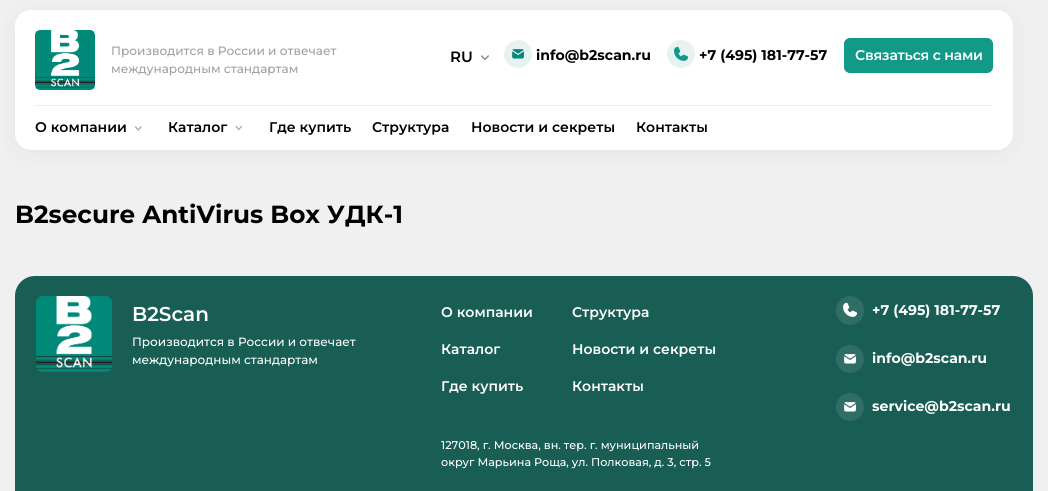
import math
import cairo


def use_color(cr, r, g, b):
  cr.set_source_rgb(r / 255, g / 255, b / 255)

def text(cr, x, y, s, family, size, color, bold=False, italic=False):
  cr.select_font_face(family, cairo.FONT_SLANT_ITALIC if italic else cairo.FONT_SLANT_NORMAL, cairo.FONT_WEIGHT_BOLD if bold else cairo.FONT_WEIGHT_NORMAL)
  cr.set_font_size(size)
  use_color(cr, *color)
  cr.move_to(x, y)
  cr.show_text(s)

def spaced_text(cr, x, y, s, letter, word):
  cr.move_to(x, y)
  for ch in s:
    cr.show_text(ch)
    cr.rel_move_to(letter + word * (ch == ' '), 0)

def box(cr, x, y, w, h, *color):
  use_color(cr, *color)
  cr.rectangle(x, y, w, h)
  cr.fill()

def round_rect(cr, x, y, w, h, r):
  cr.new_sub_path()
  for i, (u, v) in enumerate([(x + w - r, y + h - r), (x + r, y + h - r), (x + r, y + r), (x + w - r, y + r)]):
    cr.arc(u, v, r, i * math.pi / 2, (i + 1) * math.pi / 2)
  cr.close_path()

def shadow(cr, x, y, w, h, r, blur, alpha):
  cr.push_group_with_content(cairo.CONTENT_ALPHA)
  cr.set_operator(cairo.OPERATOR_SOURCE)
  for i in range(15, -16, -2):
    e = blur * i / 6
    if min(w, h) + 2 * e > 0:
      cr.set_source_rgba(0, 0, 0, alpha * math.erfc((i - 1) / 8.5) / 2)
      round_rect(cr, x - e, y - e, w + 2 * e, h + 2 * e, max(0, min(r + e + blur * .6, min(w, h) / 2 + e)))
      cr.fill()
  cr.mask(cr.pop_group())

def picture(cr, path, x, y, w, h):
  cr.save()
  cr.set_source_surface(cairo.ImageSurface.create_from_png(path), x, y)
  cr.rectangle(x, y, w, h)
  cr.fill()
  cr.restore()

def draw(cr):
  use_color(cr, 240, 240, 240)
  cr.paint()
  use_color(cr, 6, 35, 32)
  shadow(cr, 15, 14, 998, 140, 16, 10, 0.05)
  use_color(cr, 255, 255, 255)
  round_rect(cr, 15, 10, 998, 140, 16)
  cr.fill()
  picture(cr, "img_01.png", 35, 30, 60, 60)
  picture(cr, "img_02.png", 481, 55, 8, 5)
  use_color(cr, 230, 243, 242)
  cr.arc(518, 54, 14, 0, 2 * math.pi)
  cr.fill()
  picture(cr, "img_03.png", 512, 49, 12, 10)
  cr.arc(681, 54, 14, 0, 2 * math.pi)
  cr.fill()
  picture(cr, "img_04.png", 674, 46, 15, 15)
  use_color(cr, 19, 153, 136)
  round_rect(cr, 844.5, 38.5, 148, 34, 5.5)
  cr.fill_preserve()
  cr.set_line_width(1)
  cr.stroke()
  box(cr, 35, 105, 958, 1, 237, 237, 237)
  picture(cr, "img_05.png", 135, 126, 7, 5)
  picture(cr, "img_06.png", 235, 125, 7, 6)
  use_color(cr, 25, 94, 85)
  cr.new_path()
  cr.move_to(35, 276)
  cr.line_to(1013, 276)
  cr.curve_to(1024, 276, 1033, 285, 1033, 296)
  cr.line_to(1033, 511)
  cr.line_to(15, 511)
  cr.line_to(15, 296)
  cr.curve_to(15, 285, 24, 276, 35, 276)
  cr.close_path()
  cr.fill()
  picture(cr, "img_07.png", 36, 296, 76, 76)
  use_color(cr, 48, 109, 102)
  round_rect(cr, 836, 296, 28, 29, 14)
  cr.fill()
  picture(cr, "img_08.png", 843, 302, 15, 15)
  cr.arc(850, 359, 14, 0, 2 * math.pi)
  cr.fill()
  picture(cr, "img_09.png", 844, 354, 12, 10)
  cr.arc(850, 407, 14, 0, 2 * math.pi)
  cr.fill()
  picture(cr, "img_09.png", 844, 402, 12, 10)
  text(cr, 111, 55, "Производится в России и отвечает", "Montserrat Medium", 12.1, (160, 160, 160))
  text(cr, 111, 73, "международным стандартам", "Montserrat Medium", 12.1, (160, 160, 160))
  text(cr, 450, 62, "RU", "Montserrat SemiBold", 15, (0, 0, 0))
  text(cr, 536, 60, "info@b2scan.ru", "Montserrat", 14.1, (0, 0, 0), bold=True)
  text(cr, 699, 60, "+7 (495) 181-77-57", "Montserrat", 14.1, (0, 0, 0), bold=True)
  cr.select_font_face("Montserrat SemiBold")
  use_color(cr, 255, 255, 255)
  spaced_text(cr, 855, 60, "Связаться с нами", -0.25, 0)
  text(cr, 35, 132, "О компании", "Montserrat SemiBold", 14, (0, 0, 0))
  text(cr, 168, 132, "Каталог", "Montserrat SemiBold", 14, (0, 0, 0))
  text(cr, 269, 132, "Где купить", "Montserrat SemiBold", 14, (0, 0, 0))
  text(cr, 372, 132, "Структура", "Montserrat SemiBold", 14, (0, 0, 0))
  text(cr, 471, 132, "Новости и секреты", "Montserrat SemiBold", 14, (0, 0, 0))
  text(cr, 636, 132, "Контакты", "Montserrat SemiBold", 14, (0, 0, 0))
  text(cr, 15, 223, "B2secure AntiVirus Box УДК-1", "Montserrat", 24.75, (0, 0, 0), bold=True)
  text(cr, 132, 321, "B2Scan", "Montserrat SemiBold", 20, (255, 255, 255))
  text(cr, 132, 346, "Производится в России и отвечает", "Montserrat Medium", 12, (255, 255, 255))
  text(cr, 132, 364, "международным стандартам", "Montserrat Medium", 12, (255, 255, 255))
  text(cr, 441, 317, "О компании", "Montserrat SemiBold", 14, (255, 255, 255))
  text(cr, 441, 354, "Каталог", "Montserrat SemiBold", 14, (255, 255, 255))
  text(cr, 441, 391, "Где купить", "Montserrat SemiBold", 14, (255, 255, 255))
  text(cr, 572, 317, "Структура", "Montserrat SemiBold", 14, (255, 255, 255))
  text(cr, 572, 354, "Новости и секреты", "Montserrat SemiBold", 14, (255, 255, 255))
  text(cr, 572, 391, "Контакты", "Montserrat SemiBold", 14, (255, 255, 255))
  text(cr, 441, 449, "127018, г. Москва, вн. тер. г. муниципальный", "Montserrat Medium", 11.2, (255, 255, 255))
  text(cr, 441, 466, "округ Марьина Роща, ул. Полковая, д. 3, стр. 5", "Montserrat Medium", 11.2, (255, 255, 255))
  text(cr, 872, 315, "+7 (495) 181-77-57", "Montserrat", 14.1, (255, 255, 255), bold=True)
  text(cr, 872, 363, "info@b2scan.ru", "Montserrat", 14.1, (255, 255, 255), bold=True)
  text(cr, 872, 411, "service@b2scan.ru", "Montserrat", 14.1, (255, 255, 255), bold=True)


surface = cairo.ImageSurface(cairo.FORMAT_RGB24, 1048, 491)
cr = cairo.Context(surface)
options = cairo.FontOptions()
options.set_hint_metrics(cairo.HINT_METRICS_OFF)
options.set_hint_style(cairo.HINT_STYLE_NONE)
cr.set_font_options(options)
cr.set_miter_limit(4)
draw(cr)
surface.write_to_png("out.png")
